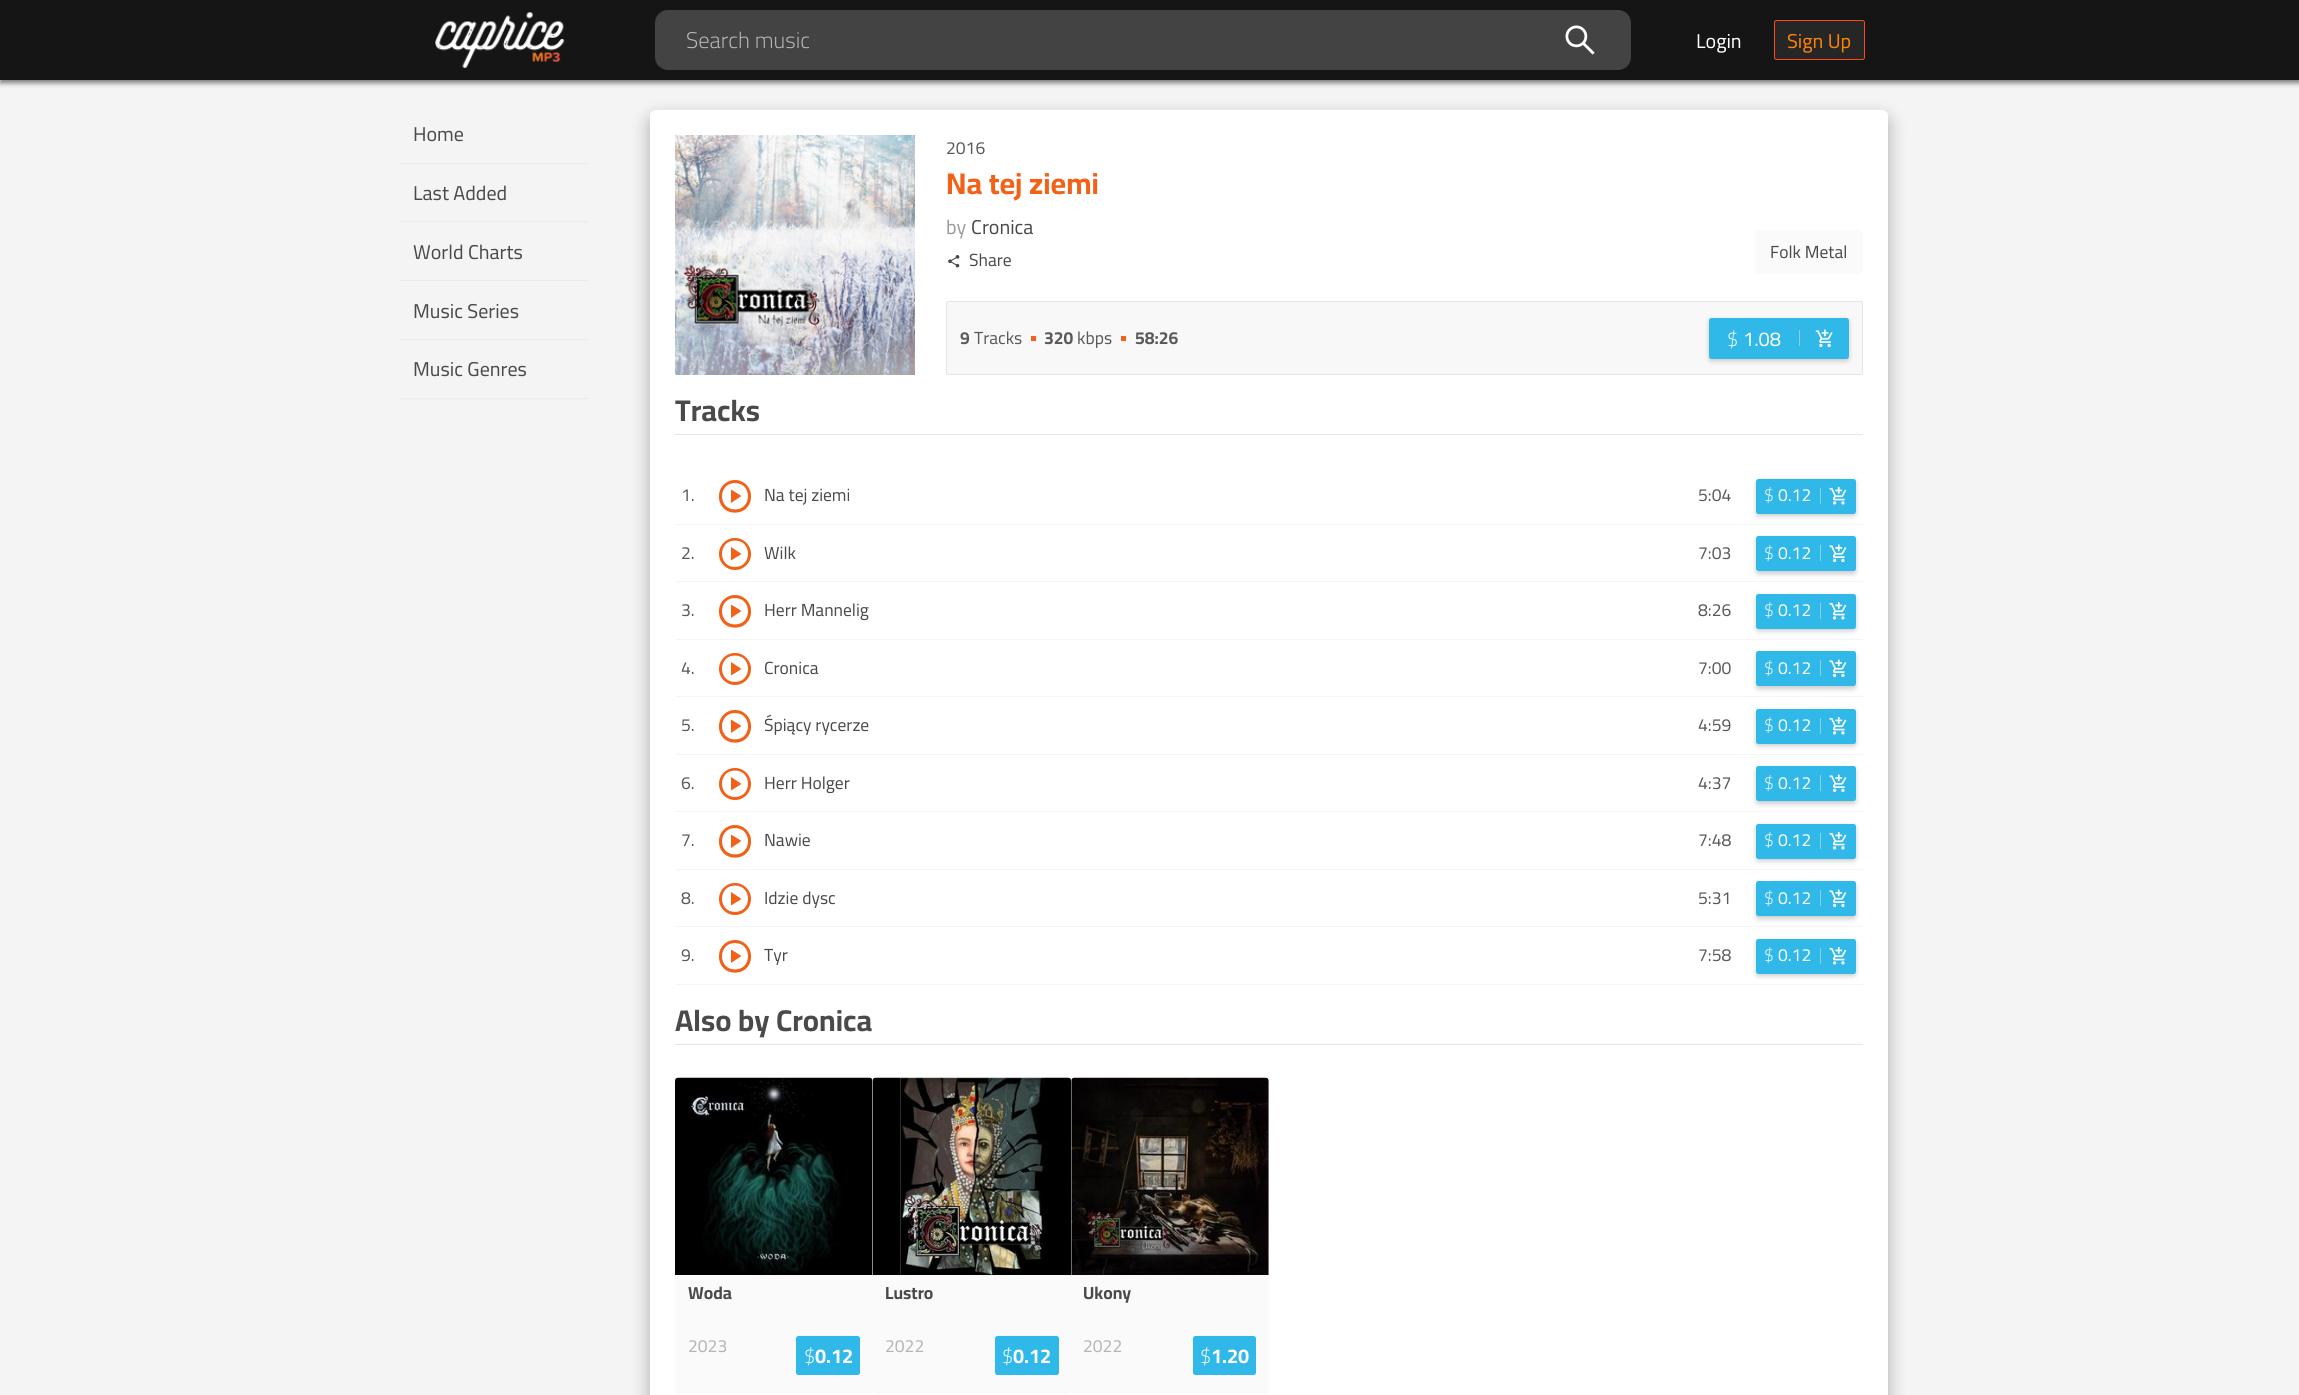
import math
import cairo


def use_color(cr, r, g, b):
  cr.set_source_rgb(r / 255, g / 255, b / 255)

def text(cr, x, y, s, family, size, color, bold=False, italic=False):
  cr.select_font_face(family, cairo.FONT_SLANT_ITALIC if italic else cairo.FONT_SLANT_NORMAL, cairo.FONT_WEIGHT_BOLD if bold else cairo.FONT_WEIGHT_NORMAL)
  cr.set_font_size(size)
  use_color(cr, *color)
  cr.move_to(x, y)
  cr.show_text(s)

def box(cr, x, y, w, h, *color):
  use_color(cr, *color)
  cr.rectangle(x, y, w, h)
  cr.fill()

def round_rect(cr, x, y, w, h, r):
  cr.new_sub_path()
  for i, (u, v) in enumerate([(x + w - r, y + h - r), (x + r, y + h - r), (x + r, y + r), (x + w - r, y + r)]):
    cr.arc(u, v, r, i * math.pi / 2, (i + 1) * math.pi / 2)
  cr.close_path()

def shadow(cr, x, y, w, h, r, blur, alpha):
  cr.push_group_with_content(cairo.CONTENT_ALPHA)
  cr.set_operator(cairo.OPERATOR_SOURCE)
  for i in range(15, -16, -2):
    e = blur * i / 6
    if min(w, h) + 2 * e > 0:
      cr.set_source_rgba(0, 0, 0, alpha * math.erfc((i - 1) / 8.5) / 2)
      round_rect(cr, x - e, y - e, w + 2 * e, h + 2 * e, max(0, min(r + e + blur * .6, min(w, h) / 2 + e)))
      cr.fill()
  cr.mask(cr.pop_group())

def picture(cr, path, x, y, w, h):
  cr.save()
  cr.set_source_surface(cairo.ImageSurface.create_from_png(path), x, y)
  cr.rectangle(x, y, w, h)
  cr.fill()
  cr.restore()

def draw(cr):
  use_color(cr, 244, 244, 244)
  cr.paint()
  use_color(cr, 0, 0, 0)
  shadow(cr, 0, 3, 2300, 80, 0, 2.5, 0.5)
  box(cr, 0, 0, 2299, 80, 22, 21, 21)
  picture(cr, "img_01.png", 435, 12, 130, 57)
  use_color(cr, 68, 67, 67)
  round_rect(cr, 655, 10, 976, 60, 13)
  cr.fill()
  picture(cr, "img_02.png", 1565, 25, 30, 30)
  use_color(cr, 38, 38, 38)
  round_rect(cr, 1774.5, 20.5, 90, 39, 2)
  cr.fill_preserve()
  use_color(cr, 252, 74, 26)
  cr.set_line_width(1)
  cr.stroke()
  box(cr, 400, 163, 188, 1, 235, 235, 235)
  box(cr, 400, 221, 188, 1, 235, 235, 235)
  box(cr, 400, 280, 188, 1, 235, 235, 235)
  box(cr, 400, 339, 188, 1, 235, 235, 235)
  box(cr, 400, 398, 188, 1, 235, 235, 235)
  use_color(cr, 0, 0, 0)
  shadow(cr, 650, 118, 1238, 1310, 6, 9, 0.3)
  use_color(cr, 255, 255, 255)
  round_rect(cr, 650, 110, 1238, 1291, 6)
  cr.fill()
  picture(cr, "img_03.png", 675, 135, 240, 240)
  picture(cr, "img_04.png", 948, 255, 12, 13)
  use_color(cr, 250, 250, 250)
  round_rect(cr, 1755, 230, 108, 44, 5)
  cr.fill()
  use_color(cr, 248, 248, 248)
  round_rect(cr, 946.5, 301.5, 916, 73, 2)
  cr.fill_preserve()
  use_color(cr, 229, 229, 229)
  cr.stroke()
  box(cr, 1031, 336, 5, 5, 242, 97, 24)
  box(cr, 1121, 336, 5, 5, 242, 97, 24)
  use_color(cr, 0, 0, 0)
  shadow(cr, 1709, 320, 140, 41, 2.5, 2.5, 0.2)
  use_color(cr, 48, 184, 233)
  round_rect(cr, 1709, 318, 140, 41, 2.5)
  cr.fill()
  box(cr, 1799, 330, 1, 16, 131, 212, 242)
  picture(cr, "img_05.png", 1815, 329, 18, 19)
  box(cr, 675, 434, 1188, 1, 230, 230, 230)
  box(cr, 675, 524, 1188, 1, 245, 245, 245)
  cr.save()
  round_rect(cr, 719, 480, 32, 33, 16)
  cr.clip()
  cr.new_path()
  cr.move_to(735, 481.5)
  cr.curve_to(754.5, 481.5, 754.5, 511, 735, 511)
  cr.curve_to(715.5, 511, 715.5, 481.5, 735, 481.5)
  use_color(cr, 242, 242, 242)
  cr.set_line_width(3.2)
  cr.set_line_cap(cairo.LINE_CAP_ROUND)
  cr.set_dash([91.89, 91.89])
  cr.stroke()
  cr.new_path()
  cr.move_to(735, 481.5)
  cr.curve_to(754.5, 481.5, 754.5, 511, 735, 511)
  cr.curve_to(715.5, 511, 715.5, 481.5, 735, 481.5)
  use_color(cr, 242, 97, 24)
  cr.stroke()
  cr.restore()
  use_color(cr, 242, 97, 24)
  cr.new_path()
  cr.move_to(731, 489.5)
  cr.line_to(731, 503)
  cr.line_to(741.5, 496)
  cr.close_path()
  cr.fill()
  use_color(cr, 0, 0, 0)
  shadow(cr, 1756, 481, 100, 35, 2.5, 2.5, 0.2)
  use_color(cr, 48, 184, 233)
  round_rect(cr, 1756, 479, 100, 35, 2.5)
  cr.fill()
  box(cr, 1820, 488, 1, 16, 131, 212, 242)
  picture(cr, "img_06.png", 1829, 487, 18, 18)
  box(cr, 675, 581, 1188, 1, 245, 245, 245)
  cr.save()
  round_rect(cr, 719, 538, 32, 32, 16)
  cr.clip()
  cr.new_path()
  cr.move_to(735, 539)
  cr.curve_to(754.5, 539, 754.5, 568.5, 735, 568.5)
  cr.curve_to(715.5, 568.5, 715.5, 539, 735, 539)
  use_color(cr, 242, 242, 242)
  cr.set_line_width(3.2)
  cr.set_line_cap(cairo.LINE_CAP_ROUND)
  cr.set_dash([91.89, 91.89])
  cr.stroke()
  cr.new_path()
  cr.move_to(735, 539)
  cr.curve_to(754.5, 539, 754.5, 568.5, 735, 568.5)
  cr.curve_to(715.5, 568.5, 715.5, 539, 735, 539)
  use_color(cr, 242, 97, 24)
  cr.stroke()
  cr.restore()
  use_color(cr, 242, 97, 24)
  cr.new_path()
  cr.move_to(731, 547)
  cr.line_to(731, 560.5)
  cr.line_to(741.5, 554)
  cr.close_path()
  cr.fill()
  use_color(cr, 0, 0, 0)
  shadow(cr, 1756, 539, 100, 35, 2.5, 2.5, 0.2)
  use_color(cr, 48, 184, 233)
  round_rect(cr, 1756, 536, 100, 35, 2.5)
  cr.fill()
  box(cr, 1820, 545, 1, 16, 131, 212, 242)
  picture(cr, "img_07.png", 1829, 544, 18, 19)
  box(cr, 675, 639, 1188, 1, 245, 245, 245)
  cr.save()
  round_rect(cr, 719, 595, 32, 33, 16)
  cr.clip()
  cr.new_path()
  cr.move_to(735, 596.5)
  cr.curve_to(754.5, 596.5, 754.5, 626, 735, 626)
  cr.curve_to(715.5, 626, 715.5, 596.5, 735, 596.5)
  use_color(cr, 242, 242, 242)
  cr.set_line_width(3.2)
  cr.set_line_cap(cairo.LINE_CAP_ROUND)
  cr.set_dash([91.89, 91.89])
  cr.stroke()
  cr.new_path()
  cr.move_to(735, 596.5)
  cr.curve_to(754.5, 596.5, 754.5, 626, 735, 626)
  cr.curve_to(715.5, 626, 715.5, 596.5, 735, 596.5)
  use_color(cr, 242, 97, 24)
  cr.stroke()
  cr.restore()
  use_color(cr, 242, 97, 24)
  cr.new_path()
  cr.move_to(731, 604.5)
  cr.line_to(731, 618)
  cr.line_to(741.5, 611)
  cr.close_path()
  cr.fill()
  use_color(cr, 0, 0, 0)
  shadow(cr, 1756, 596, 100, 35, 2.5, 2.5, 0.2)
  use_color(cr, 48, 184, 233)
  round_rect(cr, 1756, 594, 100, 35, 2.5)
  cr.fill()
  box(cr, 1820, 603, 1, 16, 131, 212, 242)
  picture(cr, "img_06.png", 1829, 602, 18, 18)
  box(cr, 675, 696, 1188, 1, 245, 245, 245)
  cr.save()
  round_rect(cr, 719, 653, 32, 32, 16)
  cr.clip()
  cr.new_path()
  cr.move_to(735, 654)
  cr.curve_to(754.5, 654, 754.5, 683.5, 735, 683.5)
  cr.curve_to(715.5, 683.5, 715.5, 654, 735, 654)
  use_color(cr, 242, 242, 242)
  cr.set_line_width(3.2)
  cr.set_line_cap(cairo.LINE_CAP_ROUND)
  cr.set_dash([91.89, 91.89])
  cr.stroke()
  cr.new_path()
  cr.move_to(735, 654)
  cr.curve_to(754.5, 654, 754.5, 683.5, 735, 683.5)
  cr.curve_to(715.5, 683.5, 715.5, 654, 735, 654)
  use_color(cr, 242, 97, 24)
  cr.stroke()
  cr.restore()
  use_color(cr, 242, 97, 24)
  cr.new_path()
  cr.move_to(731, 662)
  cr.line_to(731, 675.5)
  cr.line_to(741.5, 669)
  cr.close_path()
  cr.fill()
  use_color(cr, 0, 0, 0)
  shadow(cr, 1756, 654, 100, 35, 2.5, 2.5, 0.2)
  use_color(cr, 48, 184, 233)
  round_rect(cr, 1756, 651, 100, 35, 2.5)
  cr.fill()
  box(cr, 1820, 660, 1, 16, 131, 212, 242)
  picture(cr, "img_07.png", 1829, 659, 18, 19)
  box(cr, 675, 754, 1188, 1, 245, 245, 245)
  cr.save()
  round_rect(cr, 719, 710, 32, 33, 16)
  cr.clip()
  cr.new_path()
  cr.move_to(735, 711.5)
  cr.curve_to(754.5, 711.5, 754.5, 741, 735, 741)
  cr.curve_to(715.5, 741, 715.5, 711.5, 735, 711.5)
  use_color(cr, 242, 242, 242)
  cr.set_line_width(3.2)
  cr.set_line_cap(cairo.LINE_CAP_ROUND)
  cr.set_dash([91.89, 91.89])
  cr.stroke()
  cr.new_path()
  cr.move_to(735, 711.5)
  cr.curve_to(754.5, 711.5, 754.5, 741, 735, 741)
  cr.curve_to(715.5, 741, 715.5, 711.5, 735, 711.5)
  use_color(cr, 242, 97, 24)
  cr.stroke()
  cr.restore()
  use_color(cr, 242, 97, 24)
  cr.new_path()
  cr.move_to(731, 719.5)
  cr.line_to(731, 733)
  cr.line_to(741.5, 726)
  cr.close_path()
  cr.fill()
  use_color(cr, 0, 0, 0)
  shadow(cr, 1756, 711, 100, 35, 2.5, 2.5, 0.2)
  use_color(cr, 48, 184, 233)
  round_rect(cr, 1756, 709, 100, 35, 2.5)
  cr.fill()
  box(cr, 1820, 718, 1, 16, 131, 212, 242)
  picture(cr, "img_06.png", 1829, 717, 18, 18)
  box(cr, 675, 811, 1188, 1, 245, 245, 245)
  cr.save()
  round_rect(cr, 719, 768, 32, 32, 16)
  cr.clip()
  cr.new_path()
  cr.move_to(735, 769)
  cr.curve_to(754.5, 769, 754.5, 798.5, 735, 798.5)
  cr.curve_to(715.5, 798.5, 715.5, 769, 735, 769)
  use_color(cr, 242, 242, 242)
  cr.set_line_width(3.2)
  cr.set_line_cap(cairo.LINE_CAP_ROUND)
  cr.set_dash([91.89, 91.89])
  cr.stroke()
  cr.new_path()
  cr.move_to(735, 769)
  cr.curve_to(754.5, 769, 754.5, 798.5, 735, 798.5)
  cr.curve_to(715.5, 798.5, 715.5, 769, 735, 769)
  use_color(cr, 242, 97, 24)
  cr.stroke()
  cr.restore()
  use_color(cr, 242, 97, 24)
  cr.new_path()
  cr.move_to(731, 777)
  cr.line_to(731, 790.5)
  cr.line_to(741.5, 784)
  cr.close_path()
  cr.fill()
  use_color(cr, 0, 0, 0)
  shadow(cr, 1756, 769, 100, 35, 2.5, 2.5, 0.2)
  use_color(cr, 48, 184, 233)
  round_rect(cr, 1756, 766, 100, 35, 2.5)
  cr.fill()
  box(cr, 1820, 775, 1, 16, 131, 212, 242)
  picture(cr, "img_07.png", 1829, 774, 18, 19)
  box(cr, 675, 869, 1188, 1, 245, 245, 245)
  cr.save()
  round_rect(cr, 719, 825, 32, 33, 16)
  cr.clip()
  cr.new_path()
  cr.move_to(735, 826.5)
  cr.curve_to(754.5, 826.5, 754.5, 856, 735, 856)
  cr.curve_to(715.5, 856, 715.5, 826.5, 735, 826.5)
  use_color(cr, 242, 242, 242)
  cr.set_line_width(3.2)
  cr.set_line_cap(cairo.LINE_CAP_ROUND)
  cr.set_dash([91.89, 91.89])
  cr.stroke()
  cr.new_path()
  cr.move_to(735, 826.5)
  cr.curve_to(754.5, 826.5, 754.5, 856, 735, 856)
  cr.curve_to(715.5, 856, 715.5, 826.5, 735, 826.5)
  use_color(cr, 242, 97, 24)
  cr.stroke()
  cr.restore()
  use_color(cr, 242, 97, 24)
  cr.new_path()
  cr.move_to(731, 834.5)
  cr.line_to(731, 848)
  cr.line_to(741.5, 841)
  cr.close_path()
  cr.fill()
  use_color(cr, 0, 0, 0)
  shadow(cr, 1756, 826, 100, 35, 2.5, 2.5, 0.2)
  use_color(cr, 48, 184, 233)
  round_rect(cr, 1756, 824, 100, 35, 2.5)
  cr.fill()
  box(cr, 1820, 833, 1, 16, 131, 212, 242)
  picture(cr, "img_06.png", 1829, 832, 18, 18)
  box(cr, 675, 926, 1188, 1, 245, 245, 245)
  cr.save()
  round_rect(cr, 719, 883, 32, 32, 16)
  cr.clip()
  cr.new_path()
  cr.move_to(735, 884)
  cr.curve_to(754.5, 884, 754.5, 913.5, 735, 913.5)
  cr.curve_to(715.5, 913.5, 715.5, 884, 735, 884)
  use_color(cr, 242, 242, 242)
  cr.set_line_width(3.2)
  cr.set_line_cap(cairo.LINE_CAP_ROUND)
  cr.set_dash([91.89, 91.89])
  cr.stroke()
  cr.new_path()
  cr.move_to(735, 884)
  cr.curve_to(754.5, 884, 754.5, 913.5, 735, 913.5)
  cr.curve_to(715.5, 913.5, 715.5, 884, 735, 884)
  use_color(cr, 242, 97, 24)
  cr.stroke()
  cr.restore()
  use_color(cr, 242, 97, 24)
  cr.new_path()
  cr.move_to(731, 892)
  cr.line_to(731, 905.5)
  cr.line_to(741.5, 899)
  cr.close_path()
  cr.fill()
  use_color(cr, 0, 0, 0)
  shadow(cr, 1756, 884, 100, 35, 2.5, 2.5, 0.2)
  use_color(cr, 48, 184, 233)
  round_rect(cr, 1756, 881, 100, 35, 2.5)
  cr.fill()
  box(cr, 1820, 890, 1, 16, 131, 212, 242)
  picture(cr, "img_07.png", 1829, 889, 18, 19)
  box(cr, 675, 984, 1188, 1, 245, 245, 245)
  cr.save()
  round_rect(cr, 719, 940, 32, 33, 16)
  cr.clip()
  cr.new_path()
  cr.move_to(735, 941.5)
  cr.curve_to(754.5, 941.5, 754.5, 971, 735, 971)
  cr.curve_to(715.5, 971, 715.5, 941.5, 735, 941.5)
  use_color(cr, 242, 242, 242)
  cr.set_line_width(3.2)
  cr.set_line_cap(cairo.LINE_CAP_ROUND)
  cr.set_dash([91.89, 91.89])
  cr.stroke()
  cr.new_path()
  cr.move_to(735, 941.5)
  cr.curve_to(754.5, 941.5, 754.5, 971, 735, 971)
  cr.curve_to(715.5, 971, 715.5, 941.5, 735, 941.5)
  use_color(cr, 242, 97, 24)
  cr.stroke()
  cr.restore()
  use_color(cr, 242, 97, 24)
  cr.new_path()
  cr.move_to(731, 949.5)
  cr.line_to(731, 963)
  cr.line_to(741.5, 956)
  cr.close_path()
  cr.fill()
  use_color(cr, 0, 0, 0)
  shadow(cr, 1756, 941, 100, 35, 2.5, 2.5, 0.2)
  use_color(cr, 48, 184, 233)
  round_rect(cr, 1756, 939, 100, 35, 2.5)
  cr.fill()
  box(cr, 1820, 948, 1, 16, 131, 212, 242)
  picture(cr, "img_06.png", 1829, 947, 18, 18)
  box(cr, 675, 1044, 1188, 1, 230, 230, 230)
  use_color(cr, 250, 250, 250)
  round_rect(cr, 675, 1078, 198, 316, 4)
  cr.fill()
  picture(cr, "img_08.png", 675, 1077, 198, 198)
  use_color(cr, 48, 184, 233)
  round_rect(cr, 796, 1336, 64, 39, 2.5)
  cr.fill()
  use_color(cr, 250, 250, 250)
  round_rect(cr, 873, 1078, 198, 316, 4)
  cr.fill()
  picture(cr, "img_09.png", 872, 1077, 200, 198)
  use_color(cr, 48, 184, 233)
  round_rect(cr, 995, 1336, 64, 39, 2.5)
  cr.fill()
  use_color(cr, 250, 250, 250)
  round_rect(cr, 1071, 1078, 198, 316, 4)
  cr.fill()
  picture(cr, "img_10.png", 1071, 1077, 198, 198)
  use_color(cr, 48, 184, 233)
  round_rect(cr, 1193, 1336, 63, 39, 2.5)
  cr.fill()
  text(cr, 686, 48, "Search music", "Cairo Light", 22.5, (191, 191, 191))
  text(cr, 1696, 48, "Login", "Cairo", 20, (255, 255, 255))
  text(cr, 1787, 48, "Sign Up", "Cairo", 20, (255, 132, 0))
  text(cr, 413, 141, "Home", "Cairo", 20, (74, 74, 74))
  text(cr, 413, 200, "Last Added", "Cairo", 20, (74, 74, 74))
  text(cr, 413, 259, "World Charts", "Cairo", 20, (74, 74, 74))
  text(cr, 413, 318, "Music Series", "Cairo", 20, (74, 74, 74))
  text(cr, 413, 376, "Music Genres", "Cairo", 20, (74, 74, 74))
  text(cr, 946, 154, "2016", "Cairo", 17.5, (89, 89, 89))
  text(cr, 946, 194, "Na tej ziemi", "Cairo", 30, (242, 97, 24), bold=True)
  text(cr, 946, 234, "by", "Cairo", 20, (155, 155, 155))
  text(cr, 971, 234, "Cronica", "Cairo", 20, (74, 74, 74))
  text(cr, 969, 266, "Share", "Cairo", 17.5, (74, 74, 74))
  text(cr, 1770, 258, "Folk Metal", "Cairo", 17.5, (74, 74, 74))
  text(cr, 960, 344, "9", "Cairo", 17.5, (89, 89, 89), bold=True)
  text(cr, 974, 344, "Tracks", "Cairo", 17.5, (89, 89, 89))
  text(cr, 1044, 344, "320", "Cairo", 17.5, (89, 89, 89), bold=True)
  text(cr, 1077, 344, "kbps", "Cairo", 17.5, (89, 89, 89))
  text(cr, 1135, 344, "58:26", "Cairo", 17.5, (89, 89, 89), bold=True)
  text(cr, 1727, 346, "$", "Cairo Light", 20, (255, 255, 255))
  text(cr, 1743, 346, "1.08", "Cairo", 20, (255, 255, 255))
  text(cr, 675, 421, "Tracks", "Cairo", 30, (74, 74, 74), bold=True)
  text(cr, 681, 501, "1.", "Cairo", 17.5, (89, 89, 89))
  text(cr, 764, 501, "Na tej ziemi", "Cairo", 17.5, (74, 74, 74))
  text(cr, 1698, 501, "5:04", "Cairo", 17.5, (89, 89, 89))
  text(cr, 1764, 501, "$", "Cairo Light", 17.5, (255, 255, 255))
  text(cr, 1778, 501, "0.12", "Cairo", 17.5, (255, 255, 255))
  text(cr, 681, 559, "2.", "Cairo", 17.5, (89, 89, 89))
  text(cr, 764, 559, "Wilk", "Cairo", 17.5, (74, 74, 74))
  text(cr, 1698, 559, "7:03", "Cairo", 17.5, (89, 89, 89))
  text(cr, 1764, 559, "$", "Cairo Light", 17.5, (255, 255, 255))
  text(cr, 1778, 559, "0.12", "Cairo", 17.5, (255, 255, 255))
  text(cr, 681, 616, "3.", "Cairo", 17.5, (89, 89, 89))
  text(cr, 764, 616, "Herr Mannelig", "Cairo", 17.5, (74, 74, 74))
  text(cr, 1698, 616, "8:26", "Cairo", 17.5, (89, 89, 89))
  text(cr, 1764, 616, "$", "Cairo Light", 17.5, (255, 255, 255))
  text(cr, 1778, 616, "0.12", "Cairo", 17.5, (255, 255, 255))
  text(cr, 681, 674, "4.", "Cairo", 17.5, (89, 89, 89))
  text(cr, 764, 674, "Cronica", "Cairo", 17.5, (74, 74, 74))
  text(cr, 1698, 674, "7:00", "Cairo", 17.5, (89, 89, 89))
  text(cr, 1764, 674, "$", "Cairo Light", 17.5, (255, 255, 255))
  text(cr, 1778, 674, "0.12", "Cairo", 17.5, (255, 255, 255))
  text(cr, 681, 731, "5.", "Cairo", 17.5, (89, 89, 89))
  text(cr, 764, 731, "Śpiący rycerze", "Cairo", 17.5, (74, 74, 74))
  text(cr, 1698, 731, "4:59", "Cairo", 17.5, (89, 89, 89))
  text(cr, 1764, 731, "$", "Cairo Light", 17.5, (255, 255, 255))
  text(cr, 1778, 731, "0.12", "Cairo", 17.5, (255, 255, 255))
  text(cr, 681, 789, "6.", "Cairo", 17.5, (89, 89, 89))
  text(cr, 764, 789, "Herr Holger", "Cairo", 17.5, (74, 74, 74))
  text(cr, 1698, 789, "4:37", "Cairo", 17.5, (89, 89, 89))
  text(cr, 1764, 789, "$", "Cairo Light", 17.5, (255, 255, 255))
  text(cr, 1778, 789, "0.12", "Cairo", 17.5, (255, 255, 255))
  text(cr, 681, 846, "7.", "Cairo", 17.5, (89, 89, 89))
  text(cr, 764, 846, "Nawie", "Cairo", 17.5, (74, 74, 74))
  text(cr, 1698, 846, "7:48", "Cairo", 17.5, (89, 89, 89))
  text(cr, 1764, 846, "$", "Cairo Light", 17.5, (255, 255, 255))
  text(cr, 1778, 846, "0.12", "Cairo", 17.5, (255, 255, 255))
  text(cr, 681, 904, "8.", "Cairo", 17.5, (89, 89, 89))
  text(cr, 764, 904, "Idzie dysc", "Cairo", 17.5, (74, 74, 74))
  text(cr, 1698, 904, "5:31", "Cairo", 17.5, (89, 89, 89))
  text(cr, 1764, 904, "$", "Cairo Light", 17.5, (255, 255, 255))
  text(cr, 1778, 904, "0.12", "Cairo", 17.5, (255, 255, 255))
  text(cr, 681, 961, "9.", "Cairo", 17.5, (89, 89, 89))
  text(cr, 764, 961, "Tyr", "Cairo", 17.5, (74, 74, 74))
  text(cr, 1698, 961, "7:58", "Cairo", 17.5, (89, 89, 89))
  text(cr, 1764, 961, "$", "Cairo Light", 17.5, (255, 255, 255))
  text(cr, 1778, 961, "0.12", "Cairo", 17.5, (255, 255, 255))
  text(cr, 675, 1031, "Also by Cronica", "Cairo", 30, (74, 74, 74), bold=True)
  text(cr, 688, 1299, "Woda", "Cairo", 17.5, (74, 74, 74), bold=True)
  text(cr, 688, 1352, "2023", "Cairo", 17.5, (180, 180, 180))
  text(cr, 804, 1363, "$", "Cairo Light", 20, (255, 255, 255))
  text(cr, 815, 1363, "0.12", "Cairo", 20, (255, 255, 255), bold=True)
  text(cr, 885, 1299, "Lustro", "Cairo", 17.5, (74, 74, 74), bold=True)
  text(cr, 885, 1352, "2022", "Cairo", 17.5, (180, 180, 180))
  text(cr, 1002, 1363, "$", "Cairo Light", 20, (255, 255, 255))
  text(cr, 1013, 1363, "0.12", "Cairo", 20, (255, 255, 255), bold=True)
  text(cr, 1083, 1299, "Ukony", "Cairo", 17.5, (74, 74, 74), bold=True)
  text(cr, 1083, 1352, "2022", "Cairo", 17.5, (180, 180, 180))
  text(cr, 1200, 1363, "$", "Cairo Light", 20, (255, 255, 255))
  text(cr, 1211, 1363, "1.20", "Cairo", 20, (255, 255, 255), bold=True)


surface = cairo.ImageSurface(cairo.FORMAT_RGB24, 2299, 1395)
cr = cairo.Context(surface)
options = cairo.FontOptions()
options.set_hint_metrics(cairo.HINT_METRICS_OFF)
options.set_hint_style(cairo.HINT_STYLE_NONE)
cr.set_font_options(options)
cr.set_miter_limit(4)
draw(cr)
surface.write_to_png("out.png")
